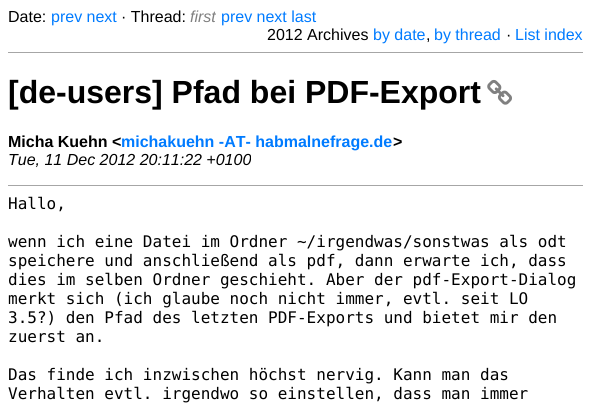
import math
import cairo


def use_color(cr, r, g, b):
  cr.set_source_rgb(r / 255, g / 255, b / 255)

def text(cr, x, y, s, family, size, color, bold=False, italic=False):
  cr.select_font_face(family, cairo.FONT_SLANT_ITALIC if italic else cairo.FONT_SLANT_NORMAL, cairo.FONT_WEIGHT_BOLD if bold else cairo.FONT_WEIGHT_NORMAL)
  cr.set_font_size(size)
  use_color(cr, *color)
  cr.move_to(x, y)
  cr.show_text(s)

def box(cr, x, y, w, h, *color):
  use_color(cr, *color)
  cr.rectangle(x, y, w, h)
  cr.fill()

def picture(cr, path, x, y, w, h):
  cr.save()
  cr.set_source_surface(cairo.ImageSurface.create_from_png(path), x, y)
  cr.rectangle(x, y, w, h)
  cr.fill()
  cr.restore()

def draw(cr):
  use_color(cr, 255, 255, 255)
  cr.paint()
  box(cr, 8, 52, 575, 1, 166, 166, 166)
  picture(cr, "img_01.png", 487, 79, 25, 26)
  box(cr, 8, 185, 575, 1, 166, 166, 166)
  text(cr, 8, 22, "Date:", "Liberation Sans", 16, (0, 0, 0))
  text(cr, 51, 22, "prev next", "Liberation Sans", 16, (0, 123, 255))
  text(cr, 121, 22, "· Thread:", "Liberation Sans", 16, (0, 0, 0))
  text(cr, 190, 22, "first", "Liberation Sans", 16, (128, 128, 128), italic=True)
  text(cr, 221, 22, "prev next last", "Liberation Sans", 16, (0, 123, 255))
  text(cr, 267, 40, "2012 Archives", "Liberation Sans", 16, (0, 0, 0))
  text(cr, 373, 40, "by date", "Liberation Sans", 16, (0, 123, 255))
  text(cr, 434, 40, "by thread", "Liberation Sans", 16, (0, 123, 255))
  text(cr, 506, 40, "·", "Liberation Sans", 16, (0, 0, 0))
  text(cr, 515, 40, "List index", "Liberation Sans", 16, (0, 123, 255))
  text(cr, 426, 40, ",", "Liberation Sans", 16, (0, 0, 0))
  text(cr, 8, 103, "[de-users] Pfad bei PDF-Export", "Liberation Sans", 32, (0, 0, 0), bold=True)
  text(cr, 8, 147, "Micha Kuehn <", "Liberation Sans", 16, (0, 0, 0), bold=True)
  text(cr, 121, 147, "michakuehn -AT- habmalnefrage.de", "Liberation Sans", 16, (0, 123, 255), bold=True)
  text(cr, 393, 147, ">", "Liberation Sans", 16, (0, 0, 0), bold=True)
  text(cr, 8, 165, "Tue, 11 Dec 2012 20:11:22 +0100", "Liberation Sans", 16, (0, 0, 0), italic=True)
  text(cr, 8, 209, "Hallo,", "DejaVu Sans Mono", 16, (0, 0, 0))
  text(cr, 8, 247, "wenn ich eine Datei im Ordner ~/irgendwas/sonstwas als odt", "DejaVu Sans Mono", 16, (0, 0, 0))
  text(cr, 8, 266, "speichere und anschließend als pdf, dann erwarte ich, dass", "DejaVu Sans Mono", 16, (0, 0, 0))
  text(cr, 8, 285, "dies im selben Ordner geschieht. Aber der pdf-Export-Dialog", "DejaVu Sans Mono", 16, (0, 0, 0))
  text(cr, 8, 304, "merkt sich (ich glaube noch nicht immer, evtl. seit LO", "DejaVu Sans Mono", 16, (0, 0, 0))
  text(cr, 8, 323, "3.5?) den Pfad des letzten PDF-Exports und bietet mir den", "DejaVu Sans Mono", 16, (0, 0, 0))
  text(cr, 8, 342, "zuerst an.", "DejaVu Sans Mono", 16, (0, 0, 0))
  text(cr, 8, 380, "Das finde ich inzwischen höchst nervig. Kann man das", "DejaVu Sans Mono", 16, (0, 0, 0))
  text(cr, 8, 399, "Verhalten evtl. irgendwo so einstellen, dass man immer", "DejaVu Sans Mono", 16, (0, 0, 0))


surface = cairo.ImageSurface(cairo.FORMAT_RGB24, 591, 407)
cr = cairo.Context(surface)
options = cairo.FontOptions()
options.set_hint_metrics(cairo.HINT_METRICS_OFF)
options.set_hint_style(cairo.HINT_STYLE_NONE)
cr.set_font_options(options)
cr.set_miter_limit(4)
draw(cr)
surface.write_to_png("out.png")
